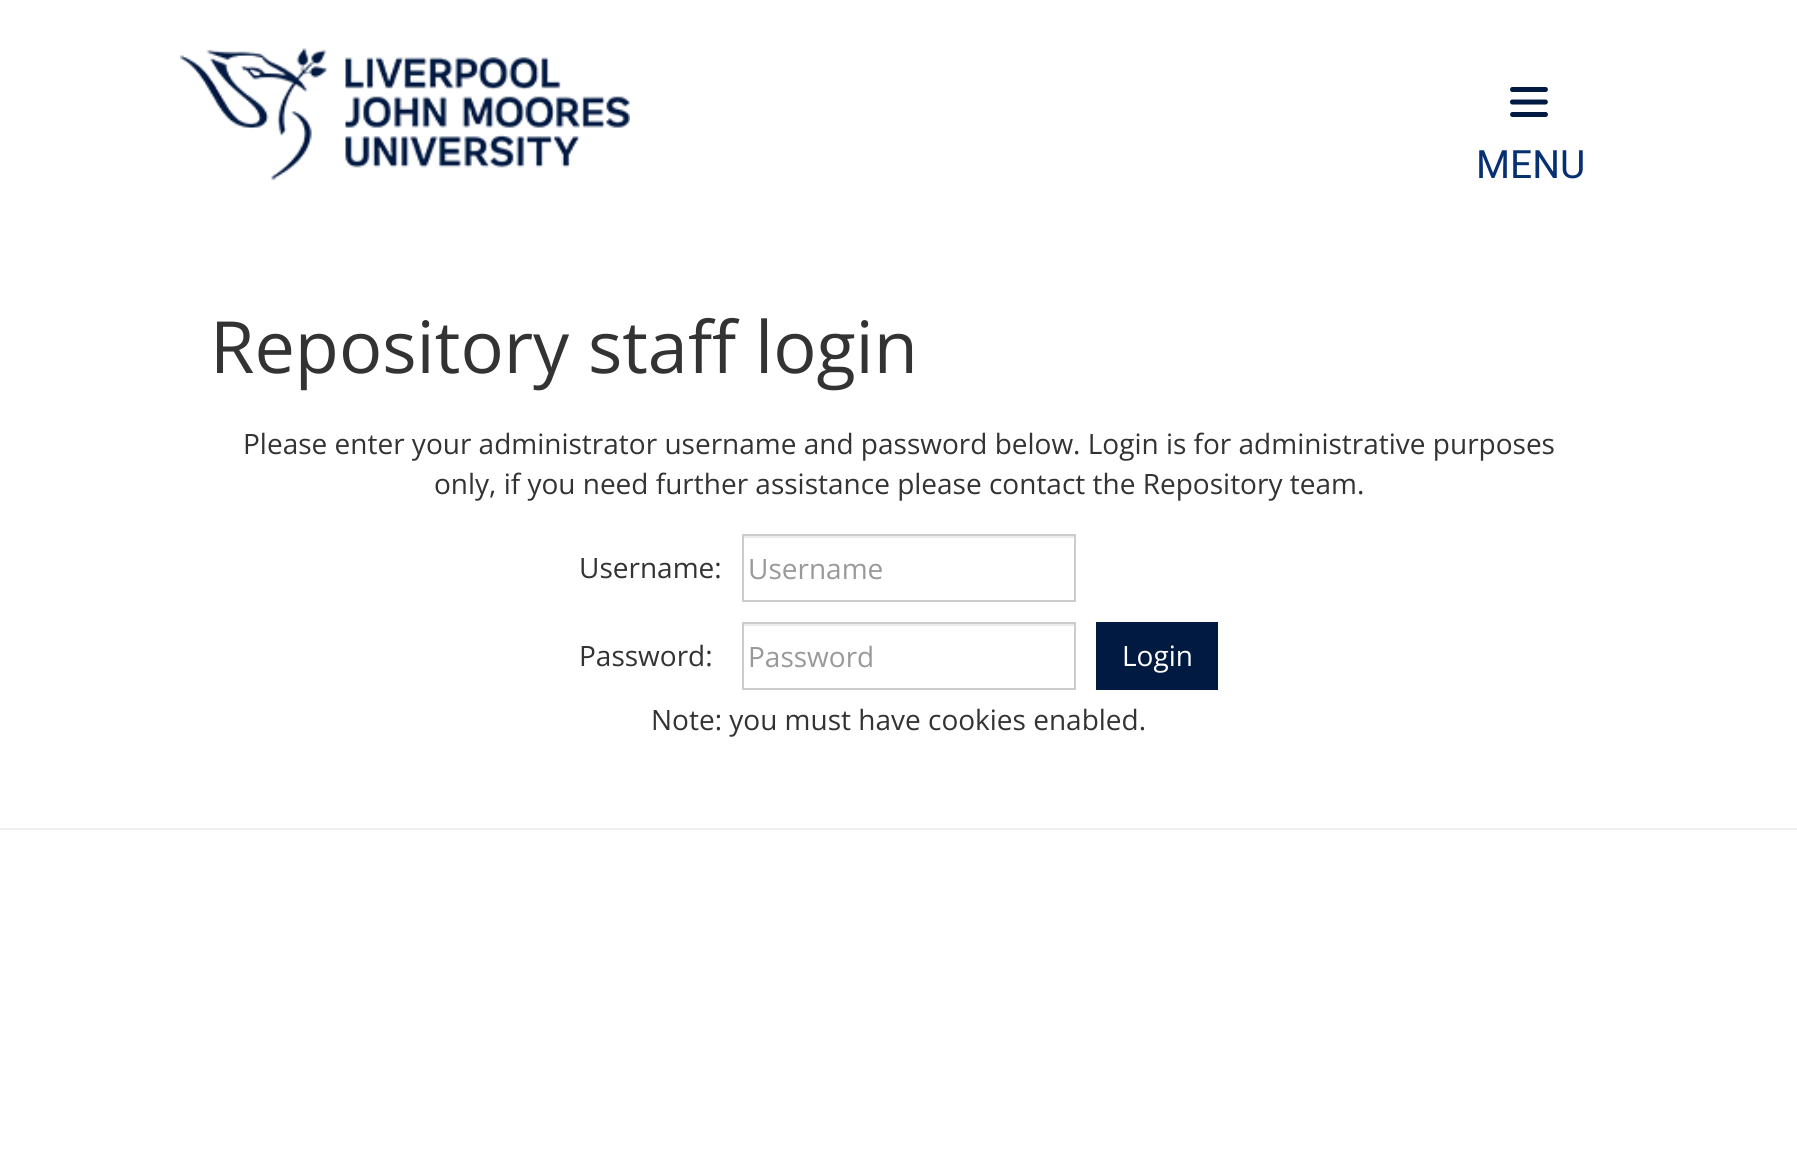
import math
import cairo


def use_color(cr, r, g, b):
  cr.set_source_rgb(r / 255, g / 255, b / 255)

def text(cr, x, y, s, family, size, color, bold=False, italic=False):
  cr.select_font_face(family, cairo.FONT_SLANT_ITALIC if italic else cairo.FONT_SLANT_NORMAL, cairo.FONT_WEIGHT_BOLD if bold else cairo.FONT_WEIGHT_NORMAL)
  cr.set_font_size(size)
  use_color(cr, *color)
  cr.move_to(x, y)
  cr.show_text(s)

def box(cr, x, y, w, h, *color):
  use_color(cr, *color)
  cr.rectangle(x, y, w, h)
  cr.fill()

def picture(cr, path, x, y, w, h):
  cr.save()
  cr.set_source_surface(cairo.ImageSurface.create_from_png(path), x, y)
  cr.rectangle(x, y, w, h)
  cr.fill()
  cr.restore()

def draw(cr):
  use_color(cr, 255, 255, 255)
  cr.paint()
  picture(cr, "img_01.png", 180, 48, 450, 133)
  picture(cr, "img_02.png", 1510, 87, 38, 30)
  box(cr, 744, 536, 330, 2, 236, 236, 236)
  cr.rectangle(743, 535, 332, 66)
  use_color(cr, 204, 204, 204)
  cr.stroke()
  box(cr, 744, 624, 330, 2, 236, 236, 236)
  cr.rectangle(743, 623, 332, 66)
  use_color(cr, 204, 204, 204)
  cr.stroke()
  box(cr, 1096, 622, 122, 68, 1, 26, 66)
  box(cr, 0, 828, 1797, 2, 238, 238, 238)
  text(cr, 1476, 178, "MENU", "Roboto", 39, (6, 48, 113))
  text(cr, 210, 373, "Repository staff login", "Open Sans", 72, (51, 51, 51))
  text(cr, 243, 454, "Please enter your administrator username and password below. Login is for administrative purposes", "Open Sans", 28, (51, 51, 51))
  text(cr, 434, 494, "only, if you need further assistance please contact the Repository team.", "Open Sans", 28, (51, 51, 51))
  text(cr, 579, 578, "Username:", "Open Sans", 28, (51, 51, 51))
  text(cr, 748, 579, "Username", "Open Sans", 28, (153, 153, 153))
  text(cr, 579, 666, "Password:", "Open Sans", 28, (51, 51, 51))
  text(cr, 748, 667, "Password", "Open Sans", 28, (153, 153, 153))
  text(cr, 1122, 666, "Login", "Open Sans", 28, (255, 255, 255))
  text(cr, 651, 730, "Note: you must have cookies enabled.", "Open Sans", 28, (51, 51, 51))


surface = cairo.ImageSurface(cairo.FORMAT_RGB24, 1797, 1157)
cr = cairo.Context(surface)
options = cairo.FontOptions()
options.set_hint_metrics(cairo.HINT_METRICS_OFF)
options.set_hint_style(cairo.HINT_STYLE_NONE)
cr.set_font_options(options)
cr.set_miter_limit(4)
draw(cr)
surface.write_to_png("out.png")
